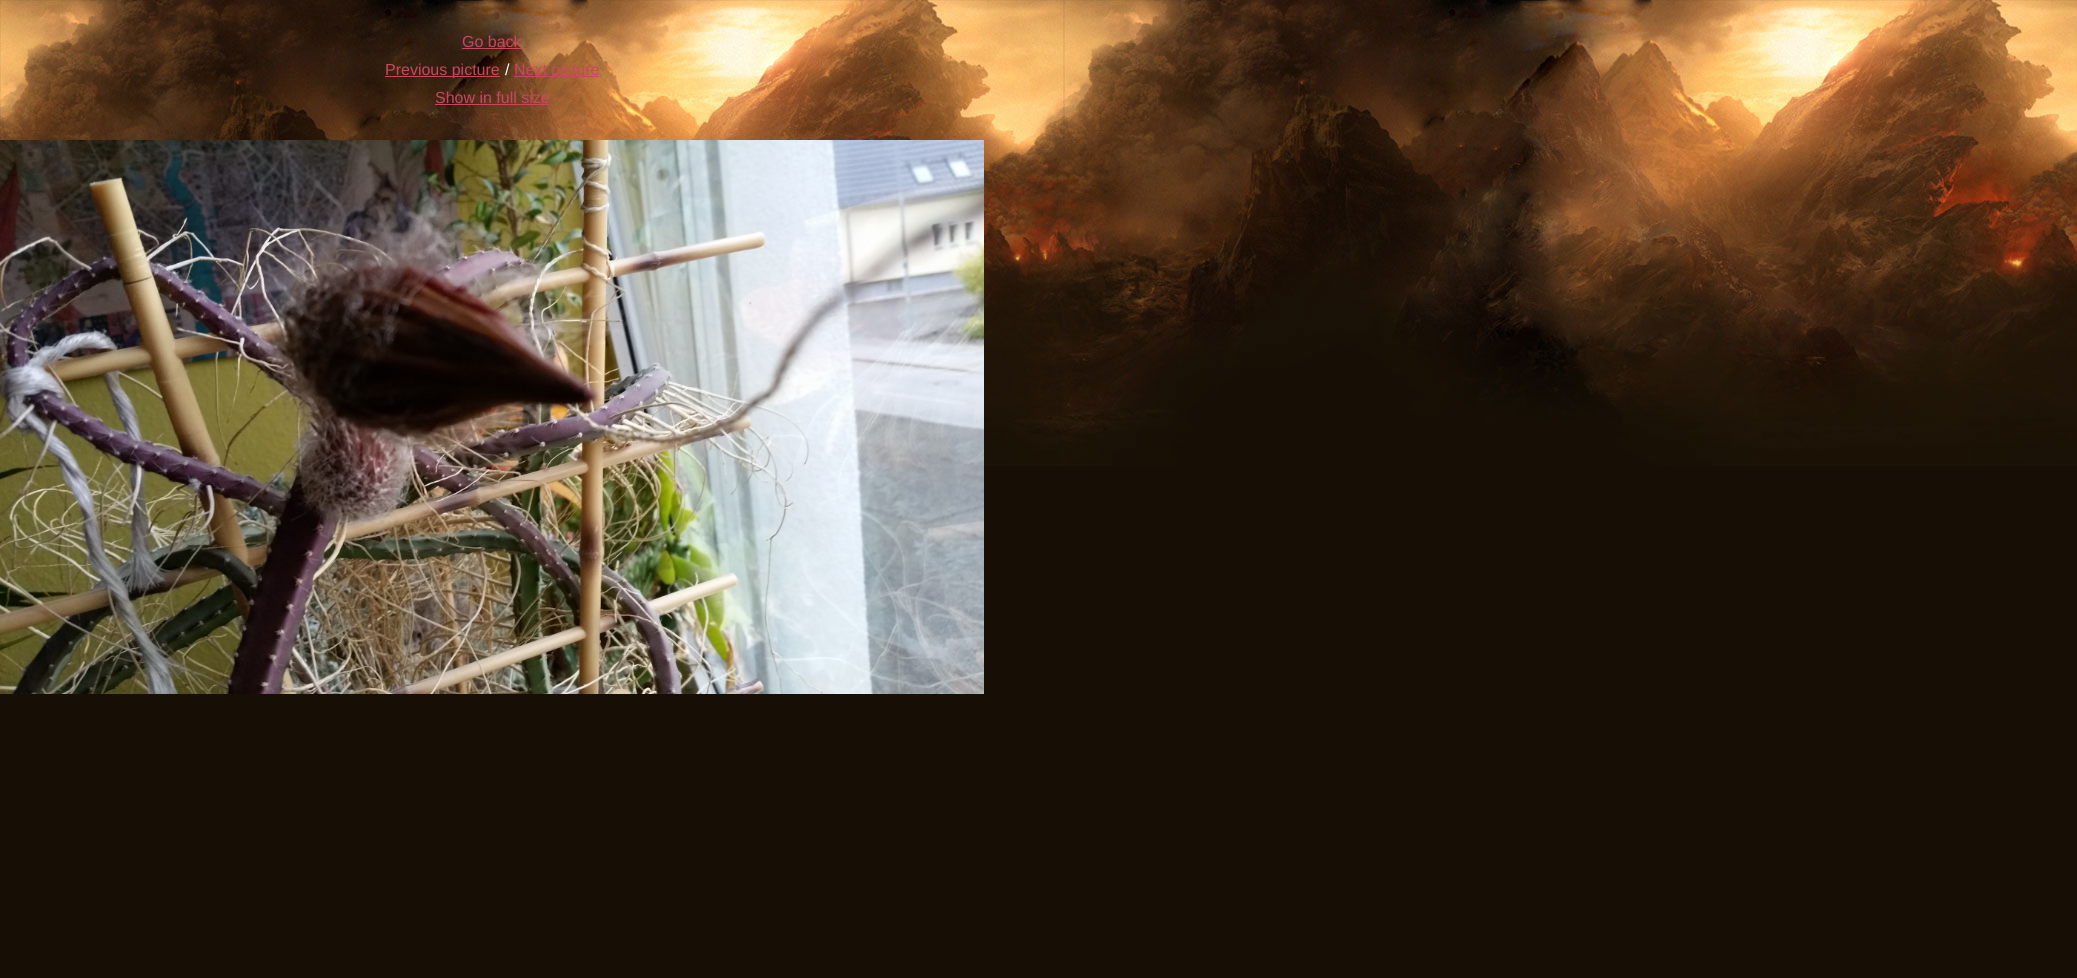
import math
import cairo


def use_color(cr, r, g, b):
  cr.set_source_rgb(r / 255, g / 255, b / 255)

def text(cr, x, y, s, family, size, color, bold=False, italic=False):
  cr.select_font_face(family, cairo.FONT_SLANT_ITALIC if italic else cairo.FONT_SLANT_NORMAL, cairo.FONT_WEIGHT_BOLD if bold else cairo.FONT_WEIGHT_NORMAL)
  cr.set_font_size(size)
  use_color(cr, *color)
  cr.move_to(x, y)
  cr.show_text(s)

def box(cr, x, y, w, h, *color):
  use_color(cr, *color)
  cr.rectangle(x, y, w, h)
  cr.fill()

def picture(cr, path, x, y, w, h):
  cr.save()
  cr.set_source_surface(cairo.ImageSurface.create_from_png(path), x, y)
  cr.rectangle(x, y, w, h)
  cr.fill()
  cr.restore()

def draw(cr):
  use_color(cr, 23, 15, 5)
  cr.paint()
  picture(cr, "img_01.png", 0, 0, 2077, 466)
  box(cr, 462, 48, 60, 1, 201, 70, 99)
  box(cr, 385, 76, 115, 1, 201, 70, 99)
  box(cr, 514, 76, 85, 1, 201, 70, 99)
  box(cr, 435, 104, 115, 1, 201, 70, 99)
  picture(cr, "img_02.png", 0, 140, 984, 554)
  text(cr, 462, 47, "Go back", "Liberation Sans", 16, (201, 70, 99))
  text(cr, 385, 75, "Previous picture", "Liberation Sans", 16, (201, 70, 99))
  text(cr, 505, 75, "/", "Liberation Sans", 16, (255, 255, 255))
  text(cr, 514, 75, "Next picture", "Liberation Sans", 16, (201, 70, 99))
  text(cr, 435, 103, "Show in full size", "Liberation Sans", 16, (201, 70, 99))


surface = cairo.ImageSurface(cairo.FORMAT_RGB24, 2077, 978)
cr = cairo.Context(surface)
options = cairo.FontOptions()
options.set_hint_metrics(cairo.HINT_METRICS_OFF)
options.set_hint_style(cairo.HINT_STYLE_NONE)
cr.set_font_options(options)
cr.set_miter_limit(4)
draw(cr)
surface.write_to_png("out.png")
